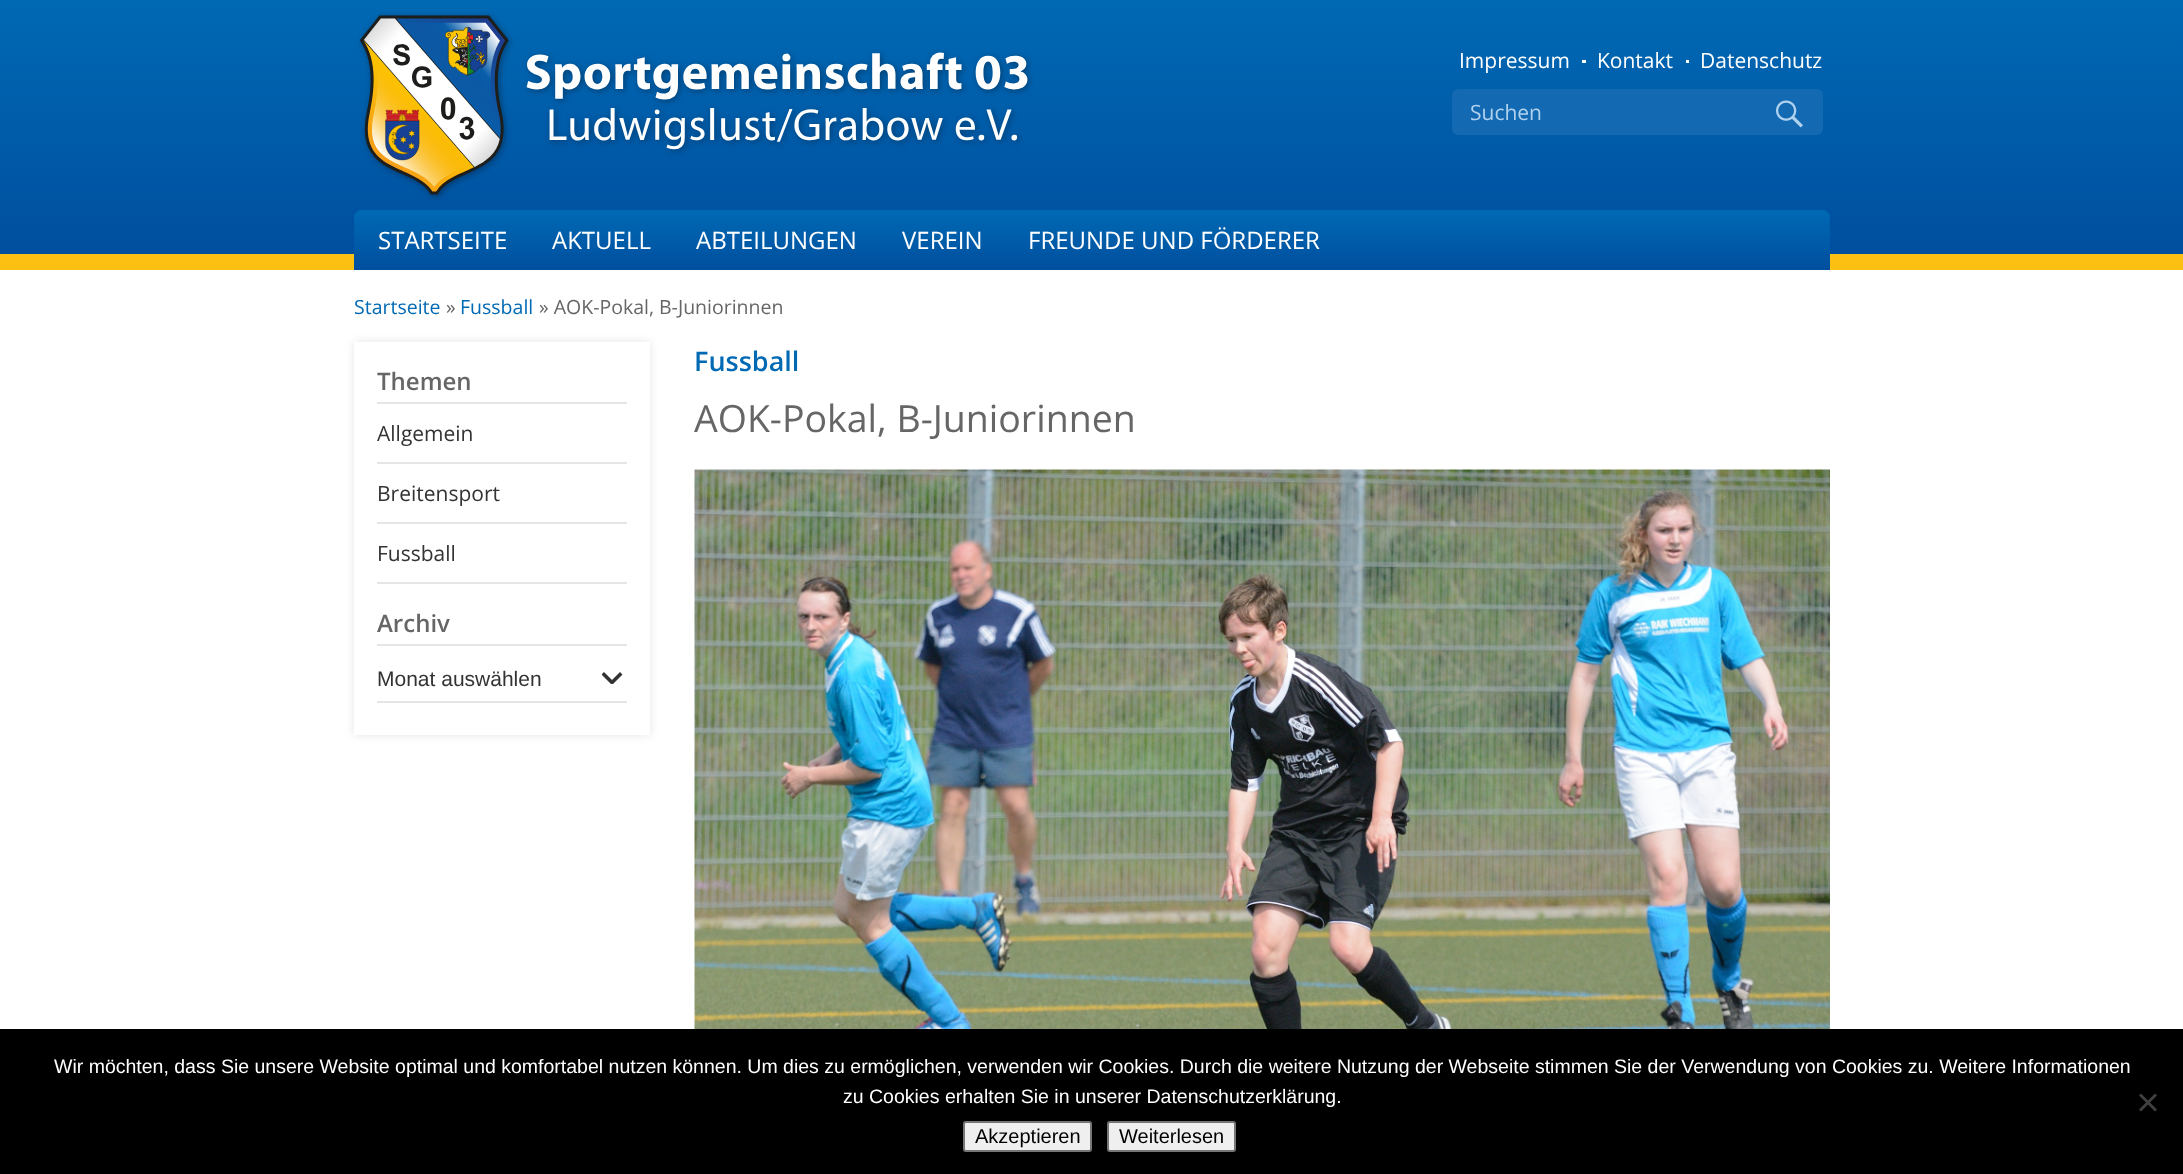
<!DOCTYPE html>
<meta charset="utf-8">
<style>body { margin: 0 } canvas { display: block }</style>
<canvas id="canvas" width="2183" height="1174"></canvas>
<img id="img1" src="img_01.png" hidden>
<img id="img2" src="img_02.png" hidden>
<img id="img3" src="img_03.png" hidden>
<script>
window.onload = function () {
	const canvas = document.getElementById("canvas");
	const ctx = canvas.getContext("2d");
	ctx.miterLimit = 4;
	ctx.fontKerning = "normal";
	function txt(s, x, y) {
		ctx.fillText(s, x, y);
	}
	function fill(x, y, w, h) {
		ctx.fillRect(x, y, w, h);
	}
	function round(x, y, w, h, r) {
		ctx.beginPath();
		ctx.roundRect(x, y, w, h, r);
		ctx.fill();
	}
	function img(id, x, y, w, h) {
		ctx.drawImage(document.getElementById(id), x, y, w, h);
	}
	let gradient;

	ctx.fillStyle = "#FFFFFF";
	fill(0, 0, 2183, 1174);
	gradient = ctx.createLinearGradient(1092, 0, 1092, 270);
	gradient.addColorStop(0, "#0069B4");
	gradient.addColorStop(0.94, "#004F9E");
	gradient.addColorStop(0.94, "#FBC011");
	gradient.addColorStop(1, "#FBC011");
	ctx.fillStyle = gradient;
	fill(0, 0, 2183, 270);
	img("img1", 358, 12, 675, 188);
	ctx.fillStyle = "#FFFFFF";
	fill(1582, 60, 4, 3);
	fill(1686, 60, 3, 3);
	ctx.fillStyle = "#136AB2";
	round(1452, 89, 371, 46, 6);
	img("img2", 1776, 100, 27, 28);
	gradient = ctx.createLinearGradient(1092, 210, 1092, 270);
	gradient.addColorStop(0, "#0069B4");
	gradient.addColorStop(1, "#004F9E");
	ctx.fillStyle = gradient;
	ctx.beginPath();
	ctx.roundRect(354, 210, 1476, 60, [8, 8, 0, 0]);
	ctx.fill();
	ctx.save();
	ctx.beginPath();
	ctx.moveTo(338, 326);
	ctx.lineTo(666, 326);
	ctx.lineTo(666, 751);
	ctx.lineTo(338, 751);
	ctx.closePath();
	ctx.moveTo(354, 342);
	ctx.lineTo(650, 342);
	ctx.lineTo(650, 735);
	ctx.lineTo(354, 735);
	ctx.closePath();
	ctx.clip("evenodd");
	ctx.fillStyle = "rgba(0, 0, 0, 0.1)";
	ctx.filter = "blur(5px)";
	ctx.beginPath();
	ctx.rect(354, 342, 296, 393);
	ctx.fill();
	ctx.filter = "none";
	ctx.restore();
	ctx.fillStyle = "#E5E5E5";
	fill(377, 402, 250, 2);
	fill(377, 462, 250, 2);
	fill(377, 522, 250, 2);
	fill(377, 582, 250, 2);
	fill(377, 644, 250, 2);
	ctx.save();
	ctx.beginPath();
	ctx.rect(602, 672, 21, 12);
	ctx.clip();
	ctx.fillStyle = "#333333";
	ctx.beginPath();
	ctx.moveTo(620, 672);
	ctx.lineTo(612, 680);
	ctx.lineTo(604, 672);
	ctx.lineTo(601.5, 674.5);
	ctx.lineTo(612, 685);
	ctx.lineTo(622.5, 674.5);
	ctx.closePath();
	ctx.fill();
	ctx.restore();
	fill(377, 701, 250, 2);
	img("img3", 694, 469, 1136, 560);
	ctx.fillStyle = "#000000";
	fill(0, 1029, 2183, 145);
	ctx.fillStyle = "#404040";
	ctx.beginPath();
	ctx.moveTo(2155, 1093.5);
	ctx.lineTo(2157, 1095.5);
	ctx.lineTo(2141, 1111.5);
	ctx.lineTo(2139, 1109.5);
	ctx.closePath();
	ctx.fill();
	ctx.beginPath();
	ctx.moveTo(2139, 1095.5);
	ctx.lineTo(2141, 1093.5);
	ctx.lineTo(2157, 1109.5);
	ctx.lineTo(2155, 1111.5);
	ctx.closePath();
	ctx.fill();
	ctx.fillStyle = "#EFEFEF";
	ctx.beginPath();
	ctx.roundRect(964, 1122, 127, 29, 2);
	ctx.fill();
	ctx.strokeStyle = "#767676";
	ctx.lineWidth = 2;
	ctx.stroke();
	ctx.beginPath();
	ctx.roundRect(1108, 1122, 127, 29, 2);
	ctx.fill();
	ctx.stroke();
	ctx.font = "21px Open Sans";
	ctx.fillStyle = "#FFFFFF";
	txt("Impressum", 1459, 68);
	txt("Kontakt", 1597, 68);
	txt("Datenschutz", 1700, 68);
	ctx.fillStyle = "#B0D2EF";
	txt("Suchen", 1470, 120);
	ctx.font = "24px Open Sans";
	ctx.fillStyle = "#FFFFFF";
	txt("STARTSEITE", 378, 249);
	txt("AKTUELL", 552, 249);
	txt("ABTEILUNGEN", 696, 249);
	txt("VEREIN", 902, 249);
	txt("FREUNDE UND FÖRDERER", 1028, 249);
	ctx.font = "19.5px Open Sans";
	ctx.fillStyle = "#0069B4";
	txt("Startseite", 354, 314);
	ctx.fillStyle = "#666666";
	txt("»", 446, 314);
	ctx.fillStyle = "#0069B4";
	txt("Fussball", 460, 314);
	ctx.fillStyle = "#666666";
	txt("» AOK-Pokal, B-Juniorinnen", 539, 314);
	ctx.font = "600 24px Open Sans";
	txt("Themen", 377, 390);
	ctx.font = "21px Open Sans";
	ctx.fillStyle = "#333333";
	txt("Allgemein", 377, 441);
	txt("Breitensport", 377, 501);
	txt("Fussball", 377, 561);
	ctx.font = "600 24px Open Sans";
	ctx.fillStyle = "#666666";
	txt("Archiv", 377, 632);
	ctx.font = "21px Liberation Sans";
	ctx.fillStyle = "#333333";
	txt("Monat auswählen", 377, 686);
	ctx.font = "600 27px Open Sans";
	ctx.fillStyle = "#0069B4";
	txt("Fussball", 694, 371);
	ctx.font = "37.5px Open Sans";
	ctx.fillStyle = "#666666";
	txt("AOK-Pokal, B-Juniorinnen", 694, 432);
	ctx.font = "19.5px Liberation Sans";
	ctx.fillStyle = "#FFFFFF";
	txt("Wir möchten, dass Sie unsere Website optimal und komfortabel nutzen können. Um dies zu ermöglichen, verwenden wir Cookies. Durch die weitere Nutzung der Webseite stimmen Sie der Verwendung von Cookies zu. Weitere Informationen", 54, 1073);
	txt("zu Cookies erhalten Sie in unserer Datenschutzerklärung.", 843, 1103);
	ctx.font = "20px Liberation Sans";
	ctx.fillStyle = "#000000";
	txt("Akzeptieren", 975, 1143);
	txt("Weiterlesen", 1119, 1143);
};
</script>
